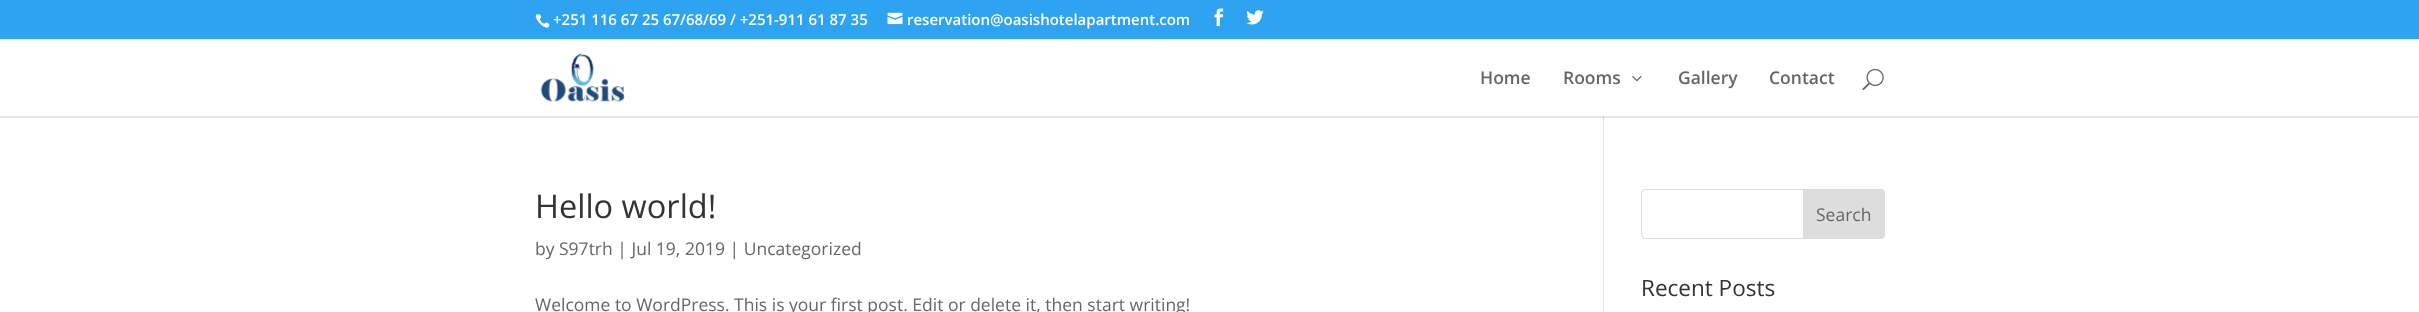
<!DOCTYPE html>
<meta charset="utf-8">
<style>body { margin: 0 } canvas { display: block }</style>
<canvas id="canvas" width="2419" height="312"></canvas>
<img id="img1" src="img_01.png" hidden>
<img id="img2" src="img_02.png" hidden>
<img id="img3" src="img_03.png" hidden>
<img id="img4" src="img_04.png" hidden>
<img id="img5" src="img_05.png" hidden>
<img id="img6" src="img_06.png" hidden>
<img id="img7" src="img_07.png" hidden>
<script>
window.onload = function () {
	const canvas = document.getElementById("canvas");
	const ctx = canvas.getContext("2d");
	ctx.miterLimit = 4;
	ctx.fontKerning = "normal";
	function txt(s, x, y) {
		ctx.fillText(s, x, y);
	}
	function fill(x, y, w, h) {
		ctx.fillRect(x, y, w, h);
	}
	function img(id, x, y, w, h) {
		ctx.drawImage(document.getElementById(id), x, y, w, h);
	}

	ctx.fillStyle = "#FFFFFF";
	fill(0, 0, 2419, 312);
	ctx.fillStyle = "#E6E6E6";
	fill(0, 116, 2419, 2);
	ctx.fillStyle = "#2EA3F2";
	fill(0, 0, 2419, 39);
	img("img1", 535, 14, 15, 14);
	img("img2", 887, 12, 16, 13);
	img("img3", 1214, 8, 10, 19);
	img("img4", 1246, 10, 18, 15);
	img("img5", 540, 53, 85, 49);
	img("img6", 1632, 76, 10, 6);
	img("img7", 1862, 68, 22, 23);
	ctx.fillStyle = "#E2E2E2";
	fill(1603, 116, 1, 196);
	ctx.fillStyle = "#CBCBCB";
	fill(1603, 116, 1, 2);
	ctx.beginPath();
	ctx.roundRect(1641.5, 189.5, 243, 49, 3.5);
	ctx.strokeStyle = "#DDDDDD";
	ctx.stroke();
	ctx.fillStyle = "#DDDDDD";
	ctx.beginPath();
	ctx.roundRect(1803.5, 189.5, 81, 49, [0, 3.5, 3.5, 0]);
	ctx.fill();
	ctx.stroke();
	ctx.font = "600 15px Open Sans";
	ctx.fillStyle = "#FFFFFF";
	txt("+251 116 67 25 67/68/69 / +251-911 61 87 35", 553, 25);
	txt("reservation@oasishotelapartment.com", 907, 25);
	ctx.font = "600 17.5px Open Sans";
	ctx.fillStyle = "#666666";
	txt("Home", 1480, 84);
	txt("Rooms", 1563, 84);
	txt("Gallery", 1678, 84);
	txt("Contact", 1769, 84);
	ctx.font = "32.5px Open Sans";
	ctx.fillStyle = "#333333";
	txt("Hello world!", 535, 218);
	ctx.font = "17.5px Open Sans";
	ctx.fillStyle = "#666666";
	txt("by S97trh | Jul 19, 2019 | Uncategorized", 535, 255);
	txt("Welcome to WordPress. This is your first post. Edit or delete it, then start writing!", 535, 311);
	txt("Search", 1816, 221);
	ctx.font = "22.5px Open Sans";
	ctx.fillStyle = "#333333";
	txt("Recent Posts", 1641, 296);
};
</script>
